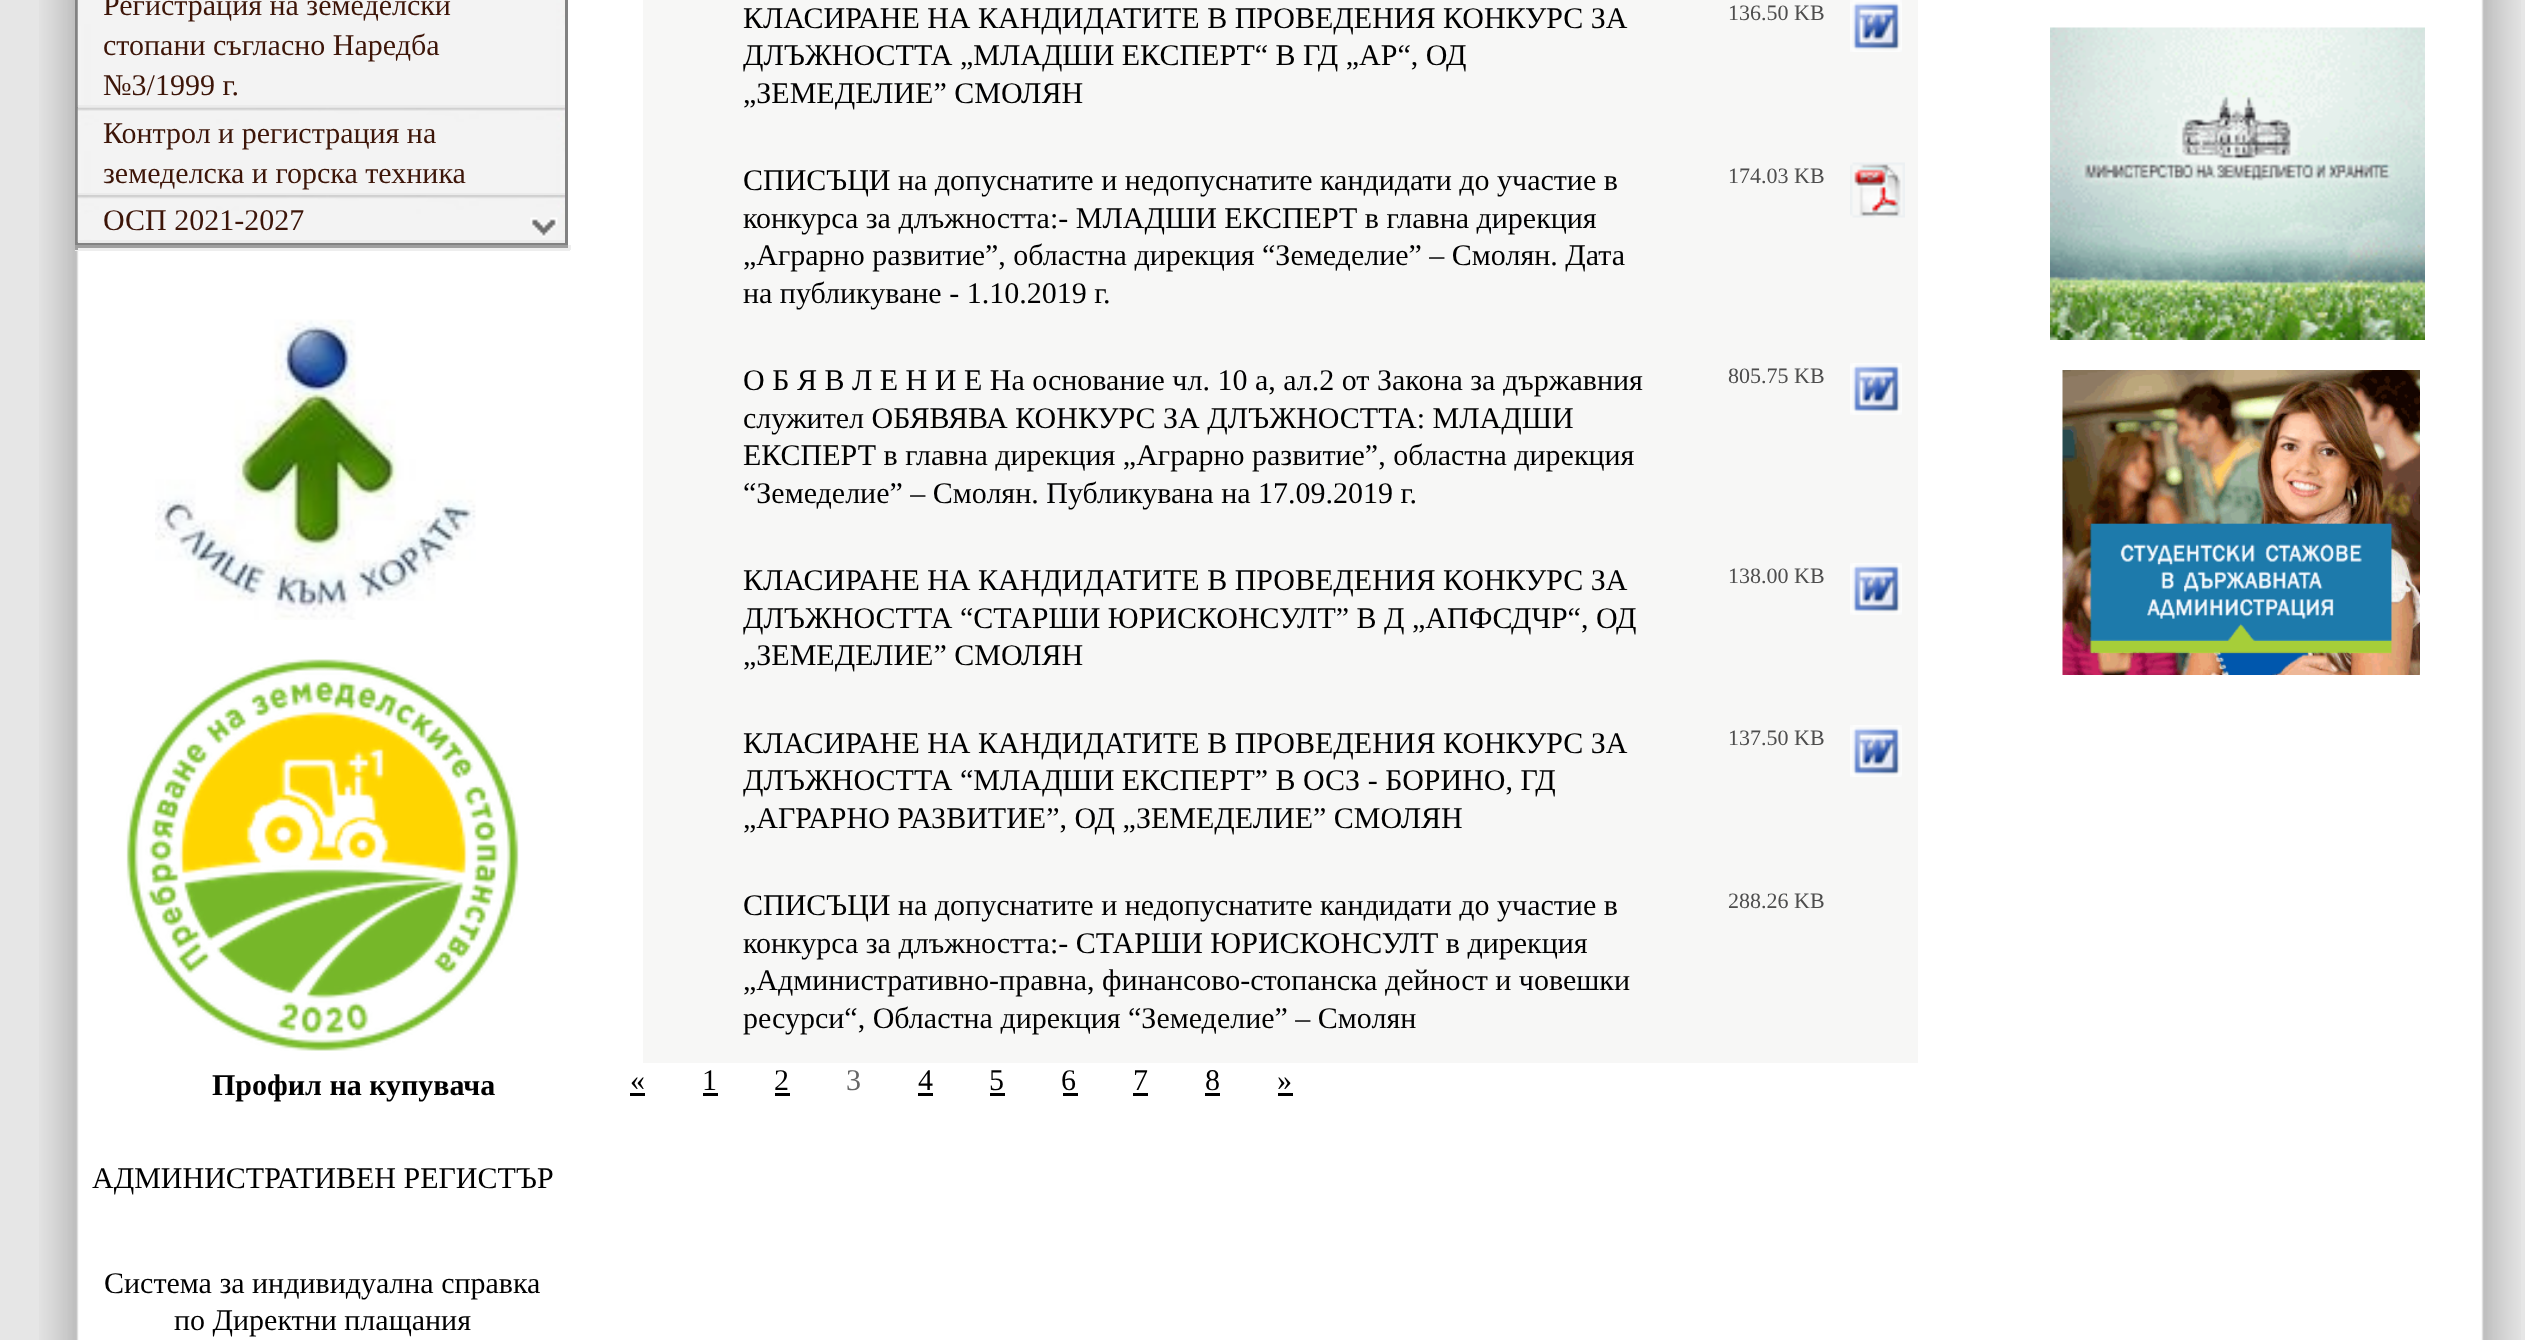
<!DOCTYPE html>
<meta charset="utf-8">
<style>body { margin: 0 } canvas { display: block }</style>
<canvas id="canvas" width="2525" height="1340"></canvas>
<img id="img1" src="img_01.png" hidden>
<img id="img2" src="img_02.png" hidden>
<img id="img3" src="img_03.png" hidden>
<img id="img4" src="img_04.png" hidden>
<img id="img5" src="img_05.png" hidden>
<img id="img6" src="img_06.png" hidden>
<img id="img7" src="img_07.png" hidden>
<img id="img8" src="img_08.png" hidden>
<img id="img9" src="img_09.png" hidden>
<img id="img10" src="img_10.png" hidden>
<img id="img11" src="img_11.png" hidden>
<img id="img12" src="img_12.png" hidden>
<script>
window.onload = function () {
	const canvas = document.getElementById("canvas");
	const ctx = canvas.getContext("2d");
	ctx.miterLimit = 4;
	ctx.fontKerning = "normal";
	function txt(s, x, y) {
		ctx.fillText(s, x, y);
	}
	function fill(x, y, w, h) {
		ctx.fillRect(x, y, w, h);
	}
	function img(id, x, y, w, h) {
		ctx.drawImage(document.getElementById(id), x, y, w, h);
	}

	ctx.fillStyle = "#E6E6E6";
	fill(0, 0, 2525, 1340);
	img("img1", 39, 0, 2482, 1340);
	ctx.strokeStyle = "#828282";
	ctx.lineWidth = 3;
	ctx.strokeRect(76.5, -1.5, 490, 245);
	img("img2", 77, 0, 488, 108);
	ctx.fillStyle = "#EBEBEB";
	fill(78, 105, 487, 3);
	img("img3", 77, 107, 488, 88);
	fill(78, 193, 487, 2);
	img("img4", 77, 195, 488, 48);
	fill(78, 240, 487, 3);
	img("img5", 530, 217, 28, 21);
	ctx.fillStyle = "#9F9F9F";
	fill(75, 245, 495, 3);
	ctx.fillStyle = "#EEEEEE";
	fill(568, 245, 3, 5);
	fill(75, 248, 495, 3);
	ctx.fillStyle = "#9F9F9F";
	fill(75, 245, 3, 5);
	img("img6", 155, 319, 321, 301);
	img("img7", 126, 659, 393, 392);
	ctx.fillStyle = "#F7F7F6";
	fill(643, 0, 1275, 138);
	img("img8", 1850, 0, 52, 52);
	fill(643, 138, 1275, 200);
	img("img9", 1850, 162, 55, 56);
	fill(643, 338, 1275, 200);
	img("img10", 1850, 363, 52, 52);
	fill(643, 538, 1275, 162);
	img("img10", 1850, 563, 52, 52);
	fill(643, 700, 1275, 163);
	img("img8", 1850, 725, 52, 52);
	fill(643, 863, 1275, 200);
	ctx.fillStyle = "#000000";
	fill(630, 1093, 15, 3);
	fill(703, 1093, 15, 3);
	fill(775, 1093, 15, 3);
	fill(918, 1093, 15, 3);
	fill(990, 1093, 15, 3);
	fill(1063, 1093, 15, 3);
	fill(1133, 1093, 15, 3);
	fill(1205, 1093, 15, 3);
	fill(1278, 1093, 15, 3);
	img("img11", 2050, 27, 375, 313);
	img("img12", 2062, 370, 358, 305);
	ctx.font = "30px Liberation Serif";
	ctx.fillStyle = "#3D1508";
	txt("Регистрация на земеделски", 103, 15);
	txt("стопани съгласно Наредба", 103, 55);
	txt("№3/1999 г.", 103, 95);
	txt("Контрол и регистрация на", 103, 143);
	txt("земеделска и горска техника", 103, 183);
	txt("ОСП 2021-2027", 103, 230);
	ctx.font = "bold 30px Liberation Serif";
	ctx.fillStyle = "#000000";
	txt("Профил на купувача", 212, 1095);
	ctx.font = "30px Liberation Serif";
	txt("АДМИНИСТРАТИВЕН РЕГИСТЪР", 92, 1188);
	txt("Система за индивидуaлна справка", 104, 1293);
	txt("по Директни плащания", 174, 1330);
	txt("КЛАСИРАНЕ НА КАНДИДАТИТЕ В ПРОВЕДЕНИЯ КОНКУРС ЗА", 743, 28);
	txt("ДЛЪЖНОСТТА „МЛАДШИ ЕКСПЕРТ“ В ГД „АР“, ОД", 743, 65);
	txt("„ЗЕМЕДЕЛИЕ” СМОЛЯН", 743, 103);
	ctx.font = "22px Liberation Serif";
	ctx.fillStyle = "#4D4D4D";
	txt("136.50 KB", 1728, 20);
	ctx.font = "30px Liberation Serif";
	ctx.fillStyle = "#000000";
	txt("СПИСЪЦИ на допуснатите и недопуснатите кандидати до участие в", 743, 190);
	txt("конкурса за длъжността:- МЛАДШИ ЕКСПЕРТ в главна дирекция", 743, 228);
	txt("„Аграрно развитие”, областна дирекция “Земеделие” – Смолян. Дата", 743, 265);
	txt("на публикуване - 1.10.2019 г.", 743, 303);
	ctx.font = "22px Liberation Serif";
	ctx.fillStyle = "#4D4D4D";
	txt("174.03 KB", 1728, 183);
	ctx.font = "30px Liberation Serif";
	ctx.fillStyle = "#000000";
	txt("О Б Я В Л Е Н И Е На основание чл. 10 а, ал.2 от Закона за държавния", 743, 390);
	txt("служител ОБЯВЯВА КОНКУРС ЗА ДЛЪЖНОСТТА: МЛАДШИ", 743, 428);
	txt("ЕКСПЕРТ в главна дирекция „Аграрно развитие”, областна дирекция", 743, 465);
	txt("“Земеделие” – Смолян. Публикувана на 17.09.2019 г.", 743, 503);
	ctx.font = "22px Liberation Serif";
	ctx.fillStyle = "#4D4D4D";
	txt("805.75 KB", 1728, 383);
	ctx.font = "30px Liberation Serif";
	ctx.fillStyle = "#000000";
	txt("КЛАСИРАНЕ НА КАНДИДАТИТЕ В ПРОВЕДЕНИЯ КОНКУРС ЗА", 743, 590);
	txt("ДЛЪЖНОСТТА “СТАРШИ ЮРИСКОНСУЛТ” В Д „АПФСДЧР“, ОД", 743, 628);
	txt("„ЗЕМЕДЕЛИЕ” СМОЛЯН", 743, 665);
	ctx.font = "22px Liberation Serif";
	ctx.fillStyle = "#4D4D4D";
	txt("138.00 KB", 1728, 583);
	ctx.font = "30px Liberation Serif";
	ctx.fillStyle = "#000000";
	txt("КЛАСИРАНЕ НА КАНДИДАТИТЕ В ПРОВЕДЕНИЯ КОНКУРС ЗА", 743, 753);
	txt("ДЛЪЖНОСТТА “МЛАДШИ ЕКСПЕРТ” В ОСЗ - БОРИНО, ГД", 743, 790);
	txt("„АГРАРНО РАЗВИТИЕ”, ОД „ЗЕМЕДЕЛИЕ” СМОЛЯН", 743, 828);
	ctx.font = "22px Liberation Serif";
	ctx.fillStyle = "#4D4D4D";
	txt("137.50 KB", 1728, 745);
	ctx.font = "30px Liberation Serif";
	ctx.fillStyle = "#000000";
	txt("СПИСЪЦИ на допуснатите и недопуснатите кандидати до участие в", 743, 915);
	txt("конкурса за длъжността:- СТАРШИ ЮРИСКОНСУЛТ в дирекция", 743, 953);
	txt("„Административно-правна, финансово-стопанска дейност и човешки", 743, 990);
	txt("ресурси“, Областна дирекция “Земеделие” – Смолян", 743, 1028);
	ctx.font = "22px Liberation Serif";
	ctx.fillStyle = "#4D4D4D";
	txt("288.26 KB", 1728, 908);
	ctx.font = "30px Liberation Serif";
	ctx.fillStyle = "#000000";
	txt("«", 630, 1090);
	txt("1", 702, 1090);
	txt("2", 774, 1090);
	ctx.fillStyle = "#666666";
	txt("3", 846, 1090);
	ctx.fillStyle = "#000000";
	txt("4", 918, 1090);
	txt("5", 989, 1090);
	txt("6", 1061, 1090);
	txt("7", 1133, 1090);
	txt("8", 1205, 1090);
	txt("»", 1277, 1090);
};
</script>
